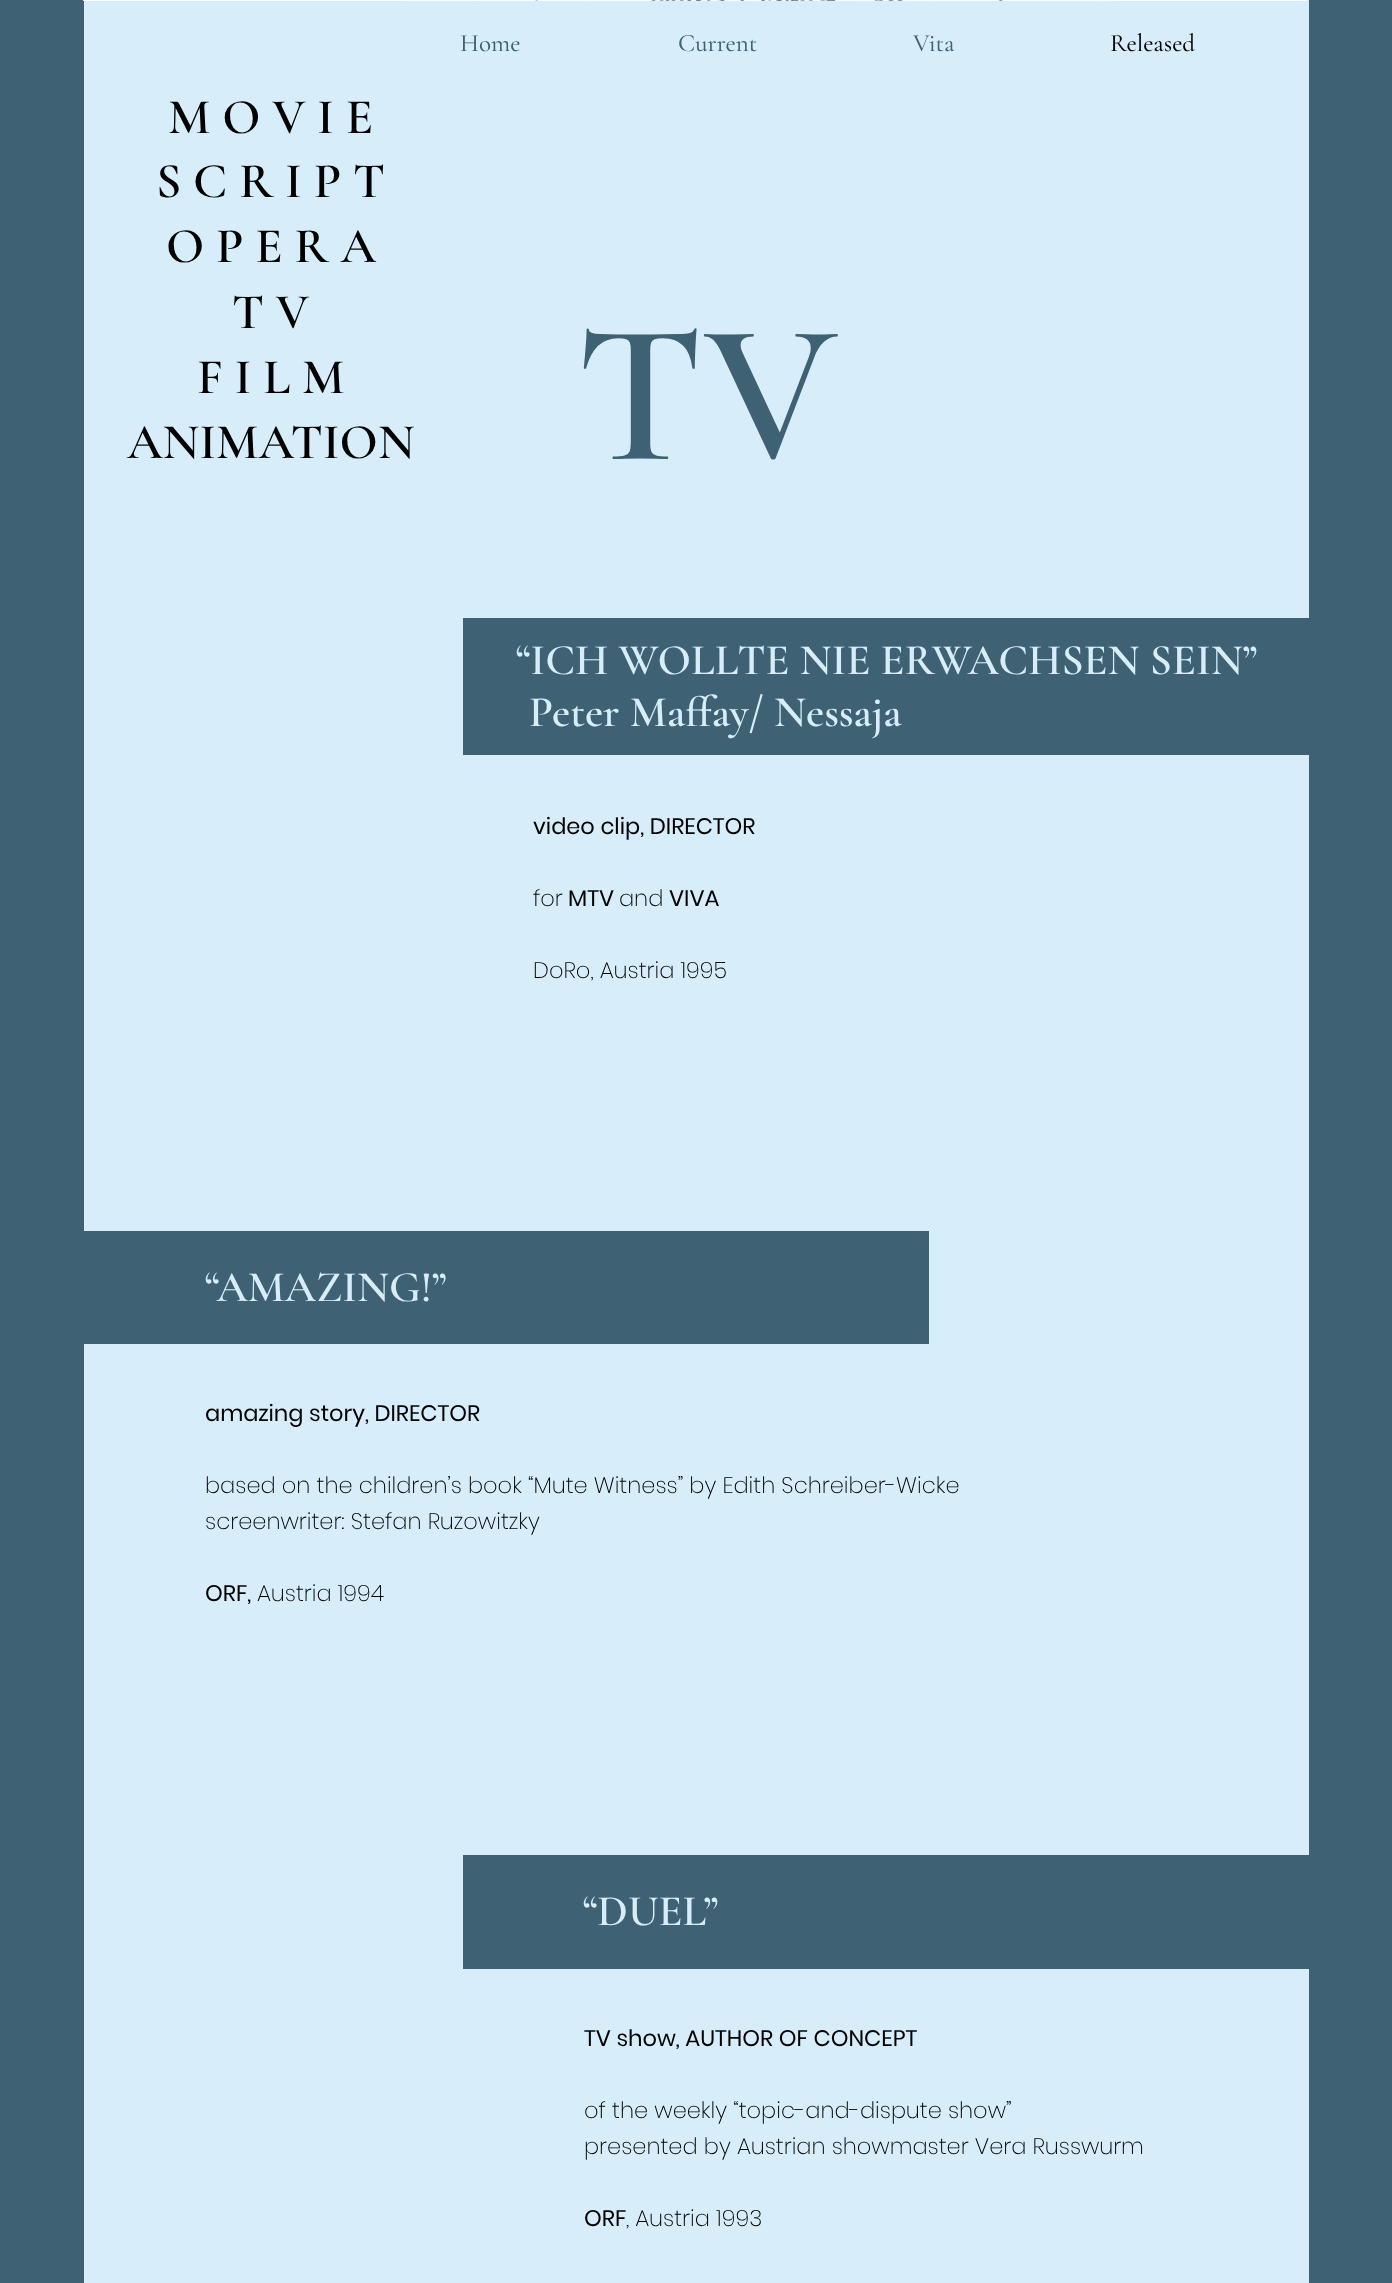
<!DOCTYPE html>
<meta charset="utf-8">
<style>body { margin: 0 } canvas { display: block }</style>
<canvas id="canvas" width="1392" height="2283"></canvas>
<img id="img1" src="img_01.png" hidden>
<script>
window.onload = function () {
	const canvas = document.getElementById("canvas");
	const ctx = canvas.getContext("2d");
	ctx.miterLimit = 4;
	ctx.fontKerning = "normal";
	function txt(s, x, y) {
		ctx.fillText(s, x, y);
	}
	function fill(x, y, w, h) {
		ctx.fillRect(x, y, w, h);
	}
	function img(id, x, y, w, h) {
		ctx.drawImage(document.getElementById(id), x, y, w, h);
	}

	ctx.fillStyle = "#3E6173";
	fill(0, 0, 1392, 2283);
	ctx.fillStyle = "#D7EEFA";
	fill(84, 0, 1225, 2283);
	img("img1", 83, 0, 1224, 1);
	ctx.fillStyle = "#3E6173";
	fill(463, 618, 846, 137);
	fill(84, 1231, 845, 113);
	fill(463, 1855, 846, 114);
	ctx.font = "500 25px Cormorant Garamond";
	txt("Home", 460, 51);
	txt("Current", 678, 51);
	txt("Vita", 913, 51);
	ctx.fillStyle = "#000000";
	txt("Released", 1110, 51);
	ctx.font = "600 50px Cormorant Garamond";
	txt("M O V I E", 168, 133);
	txt("S C R I P T", 156, 197);
	txt("O P E R A", 166, 262);
	txt("T V", 232, 328);
	txt("F I L M", 197, 393);
	txt("ANIMATION", 127, 458);
	ctx.font = "600 200px Cormorant Garamond";
	ctx.fillStyle = "#3E6173";
	txt("TV", 576, 459);
	ctx.font = "600 43.75px Cormorant Garamond";
	ctx.fillStyle = "#D7EEFA";
	txt("“ICH WOLLTE NIE ERWACHSEN SEIN”", 516, 674);
	txt("Peter Maffay/ Nessaja", 529, 726);
	ctx.font = "22.5px Poppins";
	ctx.fillStyle = "#000000";
	txt("video clip, DIRECTOR", 533, 834);
	ctx.font = "200 22.5px Poppins";
	txt("for", 533, 906);
	ctx.font = "22.5px Poppins";
	txt("MTV", 568, 906);
	ctx.font = "200 22.5px Poppins";
	txt("and", 619, 906);
	ctx.font = "22.5px Poppins";
	txt("VIVA", 669, 906);
	ctx.font = "200 22.5px Poppins";
	txt("DoRo, Austria 1995", 533, 978);
	ctx.font = "600 43.75px Cormorant Garamond";
	ctx.fillStyle = "#D7EEFA";
	txt("“AMAZING!”", 205, 1301);
	ctx.font = "22.5px Poppins";
	ctx.fillStyle = "#000000";
	txt("amazing story, DIRECTOR", 205, 1421);
	ctx.font = "200 22.5px Poppins";
	txt("based on the children’s book “Mute Witness” by Edith Schreiber-Wicke", 205, 1493);
	txt("screenwriter: Stefan Ruzowitzky", 205, 1529);
	ctx.font = "22.5px Poppins";
	txt("ORF,", 205, 1601);
	ctx.font = "200 22.5px Poppins";
	txt("Austria 1994", 257, 1601);
	ctx.font = "600 43.75px Cormorant Garamond";
	ctx.fillStyle = "#D7EEFA";
	txt("“DUEL”", 583, 1925);
	ctx.font = "22.5px Poppins";
	ctx.fillStyle = "#000000";
	txt("TV show, AUTHOR OF CONCEPT", 584, 2046);
	ctx.font = "200 22.5px Poppins";
	txt("of the weekly “topic-and-dispute show”", 584, 2118);
	txt("presented by Austrian showmaster Vera Russwurm", 584, 2154);
	ctx.font = "22.5px Poppins";
	txt("ORF", 584, 2226);
	ctx.font = "200 22.5px Poppins";
	txt(", Austria 1993", 626, 2226);
};
</script>
